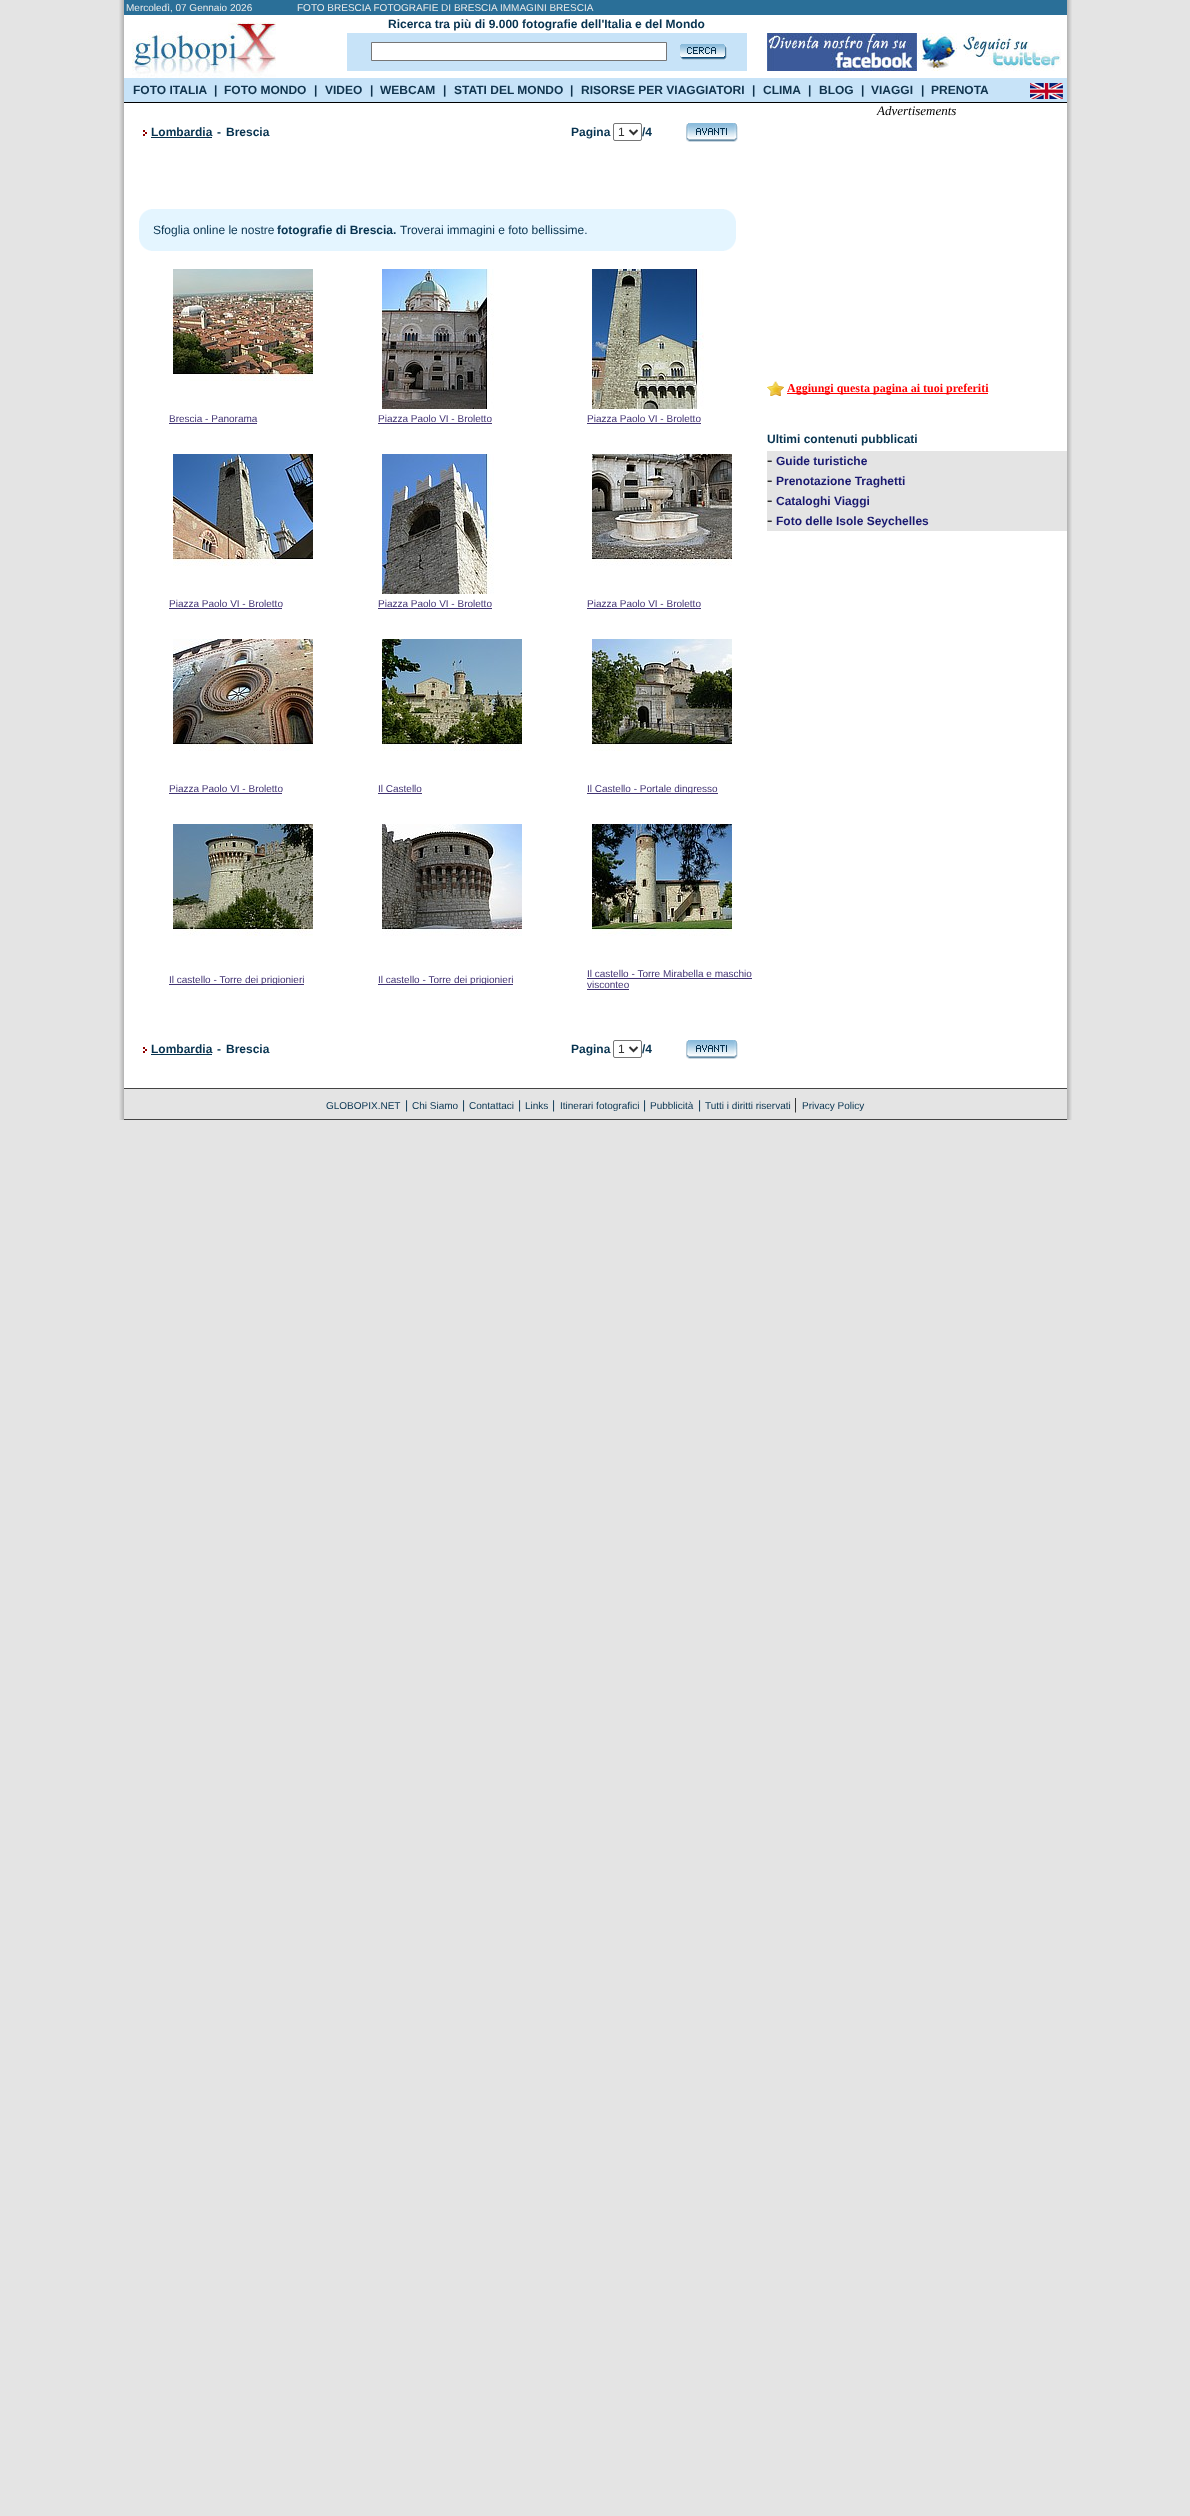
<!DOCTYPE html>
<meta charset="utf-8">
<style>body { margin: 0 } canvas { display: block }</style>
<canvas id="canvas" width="1190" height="2516"></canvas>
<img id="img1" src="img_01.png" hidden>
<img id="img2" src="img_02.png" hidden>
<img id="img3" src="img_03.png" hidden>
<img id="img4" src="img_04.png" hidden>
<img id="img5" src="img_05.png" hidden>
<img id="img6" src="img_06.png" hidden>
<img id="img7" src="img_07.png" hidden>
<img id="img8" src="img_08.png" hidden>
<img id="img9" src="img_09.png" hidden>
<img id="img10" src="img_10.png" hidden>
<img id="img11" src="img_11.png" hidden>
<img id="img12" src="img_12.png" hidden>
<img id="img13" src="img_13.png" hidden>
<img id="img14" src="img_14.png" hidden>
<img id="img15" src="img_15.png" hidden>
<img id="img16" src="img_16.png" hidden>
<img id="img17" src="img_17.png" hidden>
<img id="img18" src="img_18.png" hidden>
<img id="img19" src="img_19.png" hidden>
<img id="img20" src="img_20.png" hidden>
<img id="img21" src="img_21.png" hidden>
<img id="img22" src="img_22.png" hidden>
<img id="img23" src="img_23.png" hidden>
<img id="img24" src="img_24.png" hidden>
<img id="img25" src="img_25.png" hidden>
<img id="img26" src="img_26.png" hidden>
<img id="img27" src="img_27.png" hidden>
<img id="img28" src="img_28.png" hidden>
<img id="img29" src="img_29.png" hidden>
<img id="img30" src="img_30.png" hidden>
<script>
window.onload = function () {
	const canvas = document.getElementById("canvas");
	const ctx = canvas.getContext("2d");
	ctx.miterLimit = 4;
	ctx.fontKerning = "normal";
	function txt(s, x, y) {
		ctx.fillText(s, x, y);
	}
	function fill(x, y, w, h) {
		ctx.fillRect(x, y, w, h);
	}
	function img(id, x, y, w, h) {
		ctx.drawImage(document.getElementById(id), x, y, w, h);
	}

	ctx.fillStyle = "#E4E4E4";
	fill(0, 0, 1190, 2516);
	img("img1", 119, 0, 5, 103);
	ctx.fillStyle = "#2A6F98";
	fill(124, 0, 943, 15);
	ctx.fillStyle = "#FFFFFF";
	fill(124, 15, 943, 63);
	img("img2", 132, 22, 144, 56);
	ctx.fillStyle = "#C7E3F8";
	fill(347, 33, 400, 38);
	ctx.fillStyle = "#FFFFFF";
	ctx.beginPath();
	ctx.rect(371.5, 42.5, 295, 18);
	ctx.fill();
	ctx.strokeStyle = "#767676";
	ctx.stroke();
	img("img3", 680, 44, 47, 16);
	img("img4", 767, 33, 150, 38);
	img("img5", 917, 33, 144, 38);
	img("img6", 1067, 0, 5, 103);
	ctx.fillStyle = "#C7E3F8";
	fill(124, 78, 943, 24);
	img("img7", 1030, 83, 33, 16);
	ctx.fillStyle = "#000000";
	fill(124, 102, 943, 1);
	img("img8", 119, 103, 5, 985);
	ctx.fillStyle = "#FFFFFF";
	fill(124, 103, 943, 985);
	img("img9", 143, 130, 4, 6);
	ctx.fillStyle = "#073350";
	fill(151, 137, 61, 1);
	ctx.beginPath();
	ctx.roundRect(613.5, 123.5, 28, 17, 1.5);
	ctx.stroke();
	ctx.beginPath();
	ctx.moveTo(629.5, 130);
	ctx.lineTo(633.5, 134);
	ctx.lineTo(637.5, 130);
	ctx.strokeStyle = "#333333";
	ctx.lineWidth = 2;
	ctx.stroke();
	img("img10", 686, 123, 52, 19);
	ctx.fillStyle = "#E4F5FF";
	fill(139, 209, 597, 42);
	img("img11", 139, 209, 12, 12);
	img("img12", 724, 209, 12, 12);
	img("img13", 139, 239, 12, 12);
	img("img14", 724, 239, 12, 12);
	img("img15", 173, 269, 140, 112);
	img("img16", 382, 269, 112, 140);
	img("img17", 592, 269, 112, 140);
	ctx.fillStyle = "#413373";
	fill(169, 423, 88, 1);
	fill(378, 423, 114, 1);
	fill(587, 423, 114, 1);
	img("img18", 173, 454, 140, 112);
	img("img19", 382, 454, 112, 140);
	img("img20", 592, 454, 140, 112);
	fill(169, 608, 113, 1);
	fill(378, 608, 114, 1);
	fill(587, 608, 114, 1);
	img("img21", 173, 639, 140, 112);
	img("img22", 382, 639, 140, 112);
	img("img23", 592, 639, 140, 112);
	fill(169, 793, 113, 1);
	fill(378, 793, 44, 1);
	fill(587, 793, 131, 1);
	img("img24", 173, 824, 140, 112);
	img("img25", 382, 824, 140, 112);
	img("img26", 592, 824, 140, 112);
	fill(169, 984, 135, 1);
	fill(378, 984, 135, 1);
	fill(587, 978, 165, 1);
	fill(587, 989, 42, 1);
	img("img9", 143, 1047, 4, 6);
	ctx.fillStyle = "#073350";
	fill(151, 1054, 61, 1);
	ctx.beginPath();
	ctx.roundRect(613.5, 1040.5, 28, 17, 1.5);
	ctx.strokeStyle = "#767676";
	ctx.lineWidth = 1;
	ctx.stroke();
	ctx.beginPath();
	ctx.moveTo(629.5, 1047);
	ctx.lineTo(633.5, 1051);
	ctx.lineTo(637.5, 1047);
	ctx.strokeStyle = "#333333";
	ctx.lineWidth = 2;
	ctx.stroke();
	img("img10", 686, 1040, 52, 19);
	img("img27", 767, 381, 17, 15);
	ctx.fillStyle = "#FF0000";
	fill(787, 393, 201, 1);
	ctx.fillStyle = "#E4E4E4";
	fill(767, 451, 300, 80);
	img("img28", 1067, 103, 5, 985);
	img("img29", 119, 1088, 5, 32);
	ctx.fillStyle = "#444444";
	fill(124, 1088, 943, 1);
	img("img30", 1067, 1088, 5, 32);
	fill(124, 1119, 943, 1);
	ctx.font = "10px Liberation Sans";
	ctx.fillStyle = "#EBEBEB";
	txt("Mercoledì, 07 Gennaio 2026", 126, 11);
	txt("FOTO BRESCIA FOTOGRAFIE DI BRESCIA IMMAGINI BRESCIA", 297, 11);
	ctx.font = "bold 12px Liberation Sans";
	ctx.fillStyle = "#073350";
	txt("Ricerca tra più di 9.000 fotografie dell'Italia e del Mondo", 388, 28);
	ctx.fillStyle = "#0F334D";
	txt("FOTO ITALIA", 133, 94);
	txt("|", 214, 94);
	txt("FOTO MONDO", 224, 94);
	txt("|", 314, 94);
	txt("VIDEO", 325, 94);
	txt("|", 370, 94);
	txt("WEBCAM", 380, 94);
	txt("|", 443, 94);
	txt("STATI DEL MONDO", 454, 94);
	txt("|", 570, 94);
	txt("RISORSE PER VIAGGIATORI", 581, 94);
	txt("|", 752, 94);
	txt("CLIMA", 763, 94);
	txt("|", 808, 94);
	txt("BLOG", 819, 94);
	txt("|", 861, 94);
	txt("VIAGGI", 871, 94);
	txt("|", 921, 94);
	txt("PRENOTA", 931, 94);
	ctx.fillStyle = "#073350";
	txt("Lombardia", 151, 136);
	txt("-", 217, 136);
	txt("Brescia", 226, 136);
	txt("Pagina", 571, 136);
	ctx.font = "12px Liberation Sans";
	ctx.fillStyle = "#333333";
	txt("1", 618, 136);
	ctx.font = "bold 12px Liberation Sans";
	ctx.fillStyle = "#073350";
	txt("/4", 642, 136);
	ctx.font = "12px Liberation Sans";
	txt("Sfoglia online le nostre", 153, 234);
	ctx.font = "bold 12px Liberation Sans";
	txt("fotografie di Brescia.", 277, 234);
	ctx.font = "12px Liberation Sans";
	txt("Troverai immagini e foto bellissime.", 400, 234);
	ctx.font = "10px Liberation Sans";
	ctx.fillStyle = "#413373";
	txt("Brescia - Panorama", 169, 422);
	txt("Piazza Paolo VI - Broletto", 378, 422);
	txt("Piazza Paolo VI - Broletto", 587, 422);
	txt("Piazza Paolo VI - Broletto", 169, 607);
	txt("Piazza Paolo VI - Broletto", 378, 607);
	txt("Piazza Paolo VI - Broletto", 587, 607);
	txt("Piazza Paolo VI - Broletto", 169, 792);
	txt("Il Castello", 378, 792);
	txt("Il Castello - Portale dingresso", 587, 792);
	txt("Il castello - Torre dei prigionieri", 169, 983);
	txt("Il castello - Torre dei prigionieri", 378, 983);
	txt("Il castello - Torre Mirabella e maschio", 587, 977);
	txt("visconteo", 587, 988);
	ctx.font = "bold 12px Liberation Sans";
	ctx.fillStyle = "#073350";
	txt("Lombardia", 151, 1053);
	txt("-", 217, 1053);
	txt("Brescia", 226, 1053);
	txt("Pagina", 571, 1053);
	ctx.font = "12px Liberation Sans";
	ctx.fillStyle = "#333333";
	txt("1", 618, 1053);
	ctx.font = "bold 12px Liberation Sans";
	ctx.fillStyle = "#073350";
	txt("/4", 642, 1053);
	ctx.font = "italic 13px Liberation Serif";
	ctx.fillStyle = "#000000";
	txt("Advertisements", 877, 115);
	ctx.font = "bold 12px Liberation Serif";
	ctx.fillStyle = "#FF0000";
	txt("Aggiungi questa pagina ai tuoi preferiti", 787, 392);
	ctx.font = "bold 12px Liberation Sans";
	ctx.fillStyle = "#073350";
	txt("Ultimi contenuti pubblicati", 767, 443);
	ctx.font = "16px Liberation Serif";
	ctx.fillStyle = "#000000";
	txt("-", 767, 465);
	ctx.font = "bold 12px Liberation Sans";
	ctx.fillStyle = "#191970";
	txt("Guide turistiche", 776, 465);
	ctx.font = "16px Liberation Serif";
	ctx.fillStyle = "#000000";
	txt("-", 767, 485);
	ctx.font = "bold 12px Liberation Sans";
	ctx.fillStyle = "#191970";
	txt("Prenotazione Traghetti", 776, 485);
	ctx.font = "16px Liberation Serif";
	ctx.fillStyle = "#000000";
	txt("-", 767, 505);
	ctx.font = "bold 12px Liberation Sans";
	ctx.fillStyle = "#191970";
	txt("Cataloghi Viaggi", 776, 505);
	ctx.font = "16px Liberation Serif";
	ctx.fillStyle = "#000000";
	txt("-", 767, 525);
	ctx.font = "bold 12px Liberation Sans";
	ctx.fillStyle = "#191970";
	txt("Foto delle Isole Seychelles", 776, 525);
	ctx.font = "10px Liberation Sans";
	ctx.fillStyle = "#073350";
	txt("GLOBOPIX.NET", 326, 1109);
	ctx.font = "12px Liberation Sans";
	txt("|", 405, 1109);
	ctx.font = "10px Liberation Sans";
	txt("Chi Siamo", 412, 1109);
	ctx.font = "12px Liberation Sans";
	txt("|", 462, 1109);
	ctx.font = "10px Liberation Sans";
	txt("Contattaci", 469, 1109);
	ctx.font = "12px Liberation Sans";
	txt("|", 518, 1109);
	ctx.font = "10px Liberation Sans";
	txt("Links", 525, 1109);
	ctx.font = "12px Liberation Sans";
	txt("|", 552, 1109);
	ctx.font = "10px Liberation Sans";
	txt("Itinerari fotografici", 560, 1109);
	ctx.font = "12px Liberation Sans";
	txt("|", 643, 1109);
	ctx.font = "10px Liberation Sans";
	txt("Pubblicità", 650, 1109);
	ctx.font = "12px Liberation Sans";
	txt("|", 698, 1109);
	ctx.font = "10px Liberation Sans";
	txt("Tutti i diritti riservati", 705, 1109);
	ctx.font = "16px Liberation Serif";
	ctx.fillStyle = "#000000";
	txt("|", 794, 1109);
	ctx.font = "10px Liberation Sans";
	ctx.fillStyle = "#073350";
	txt("Privacy Policy", 802, 1109);
};
</script>
